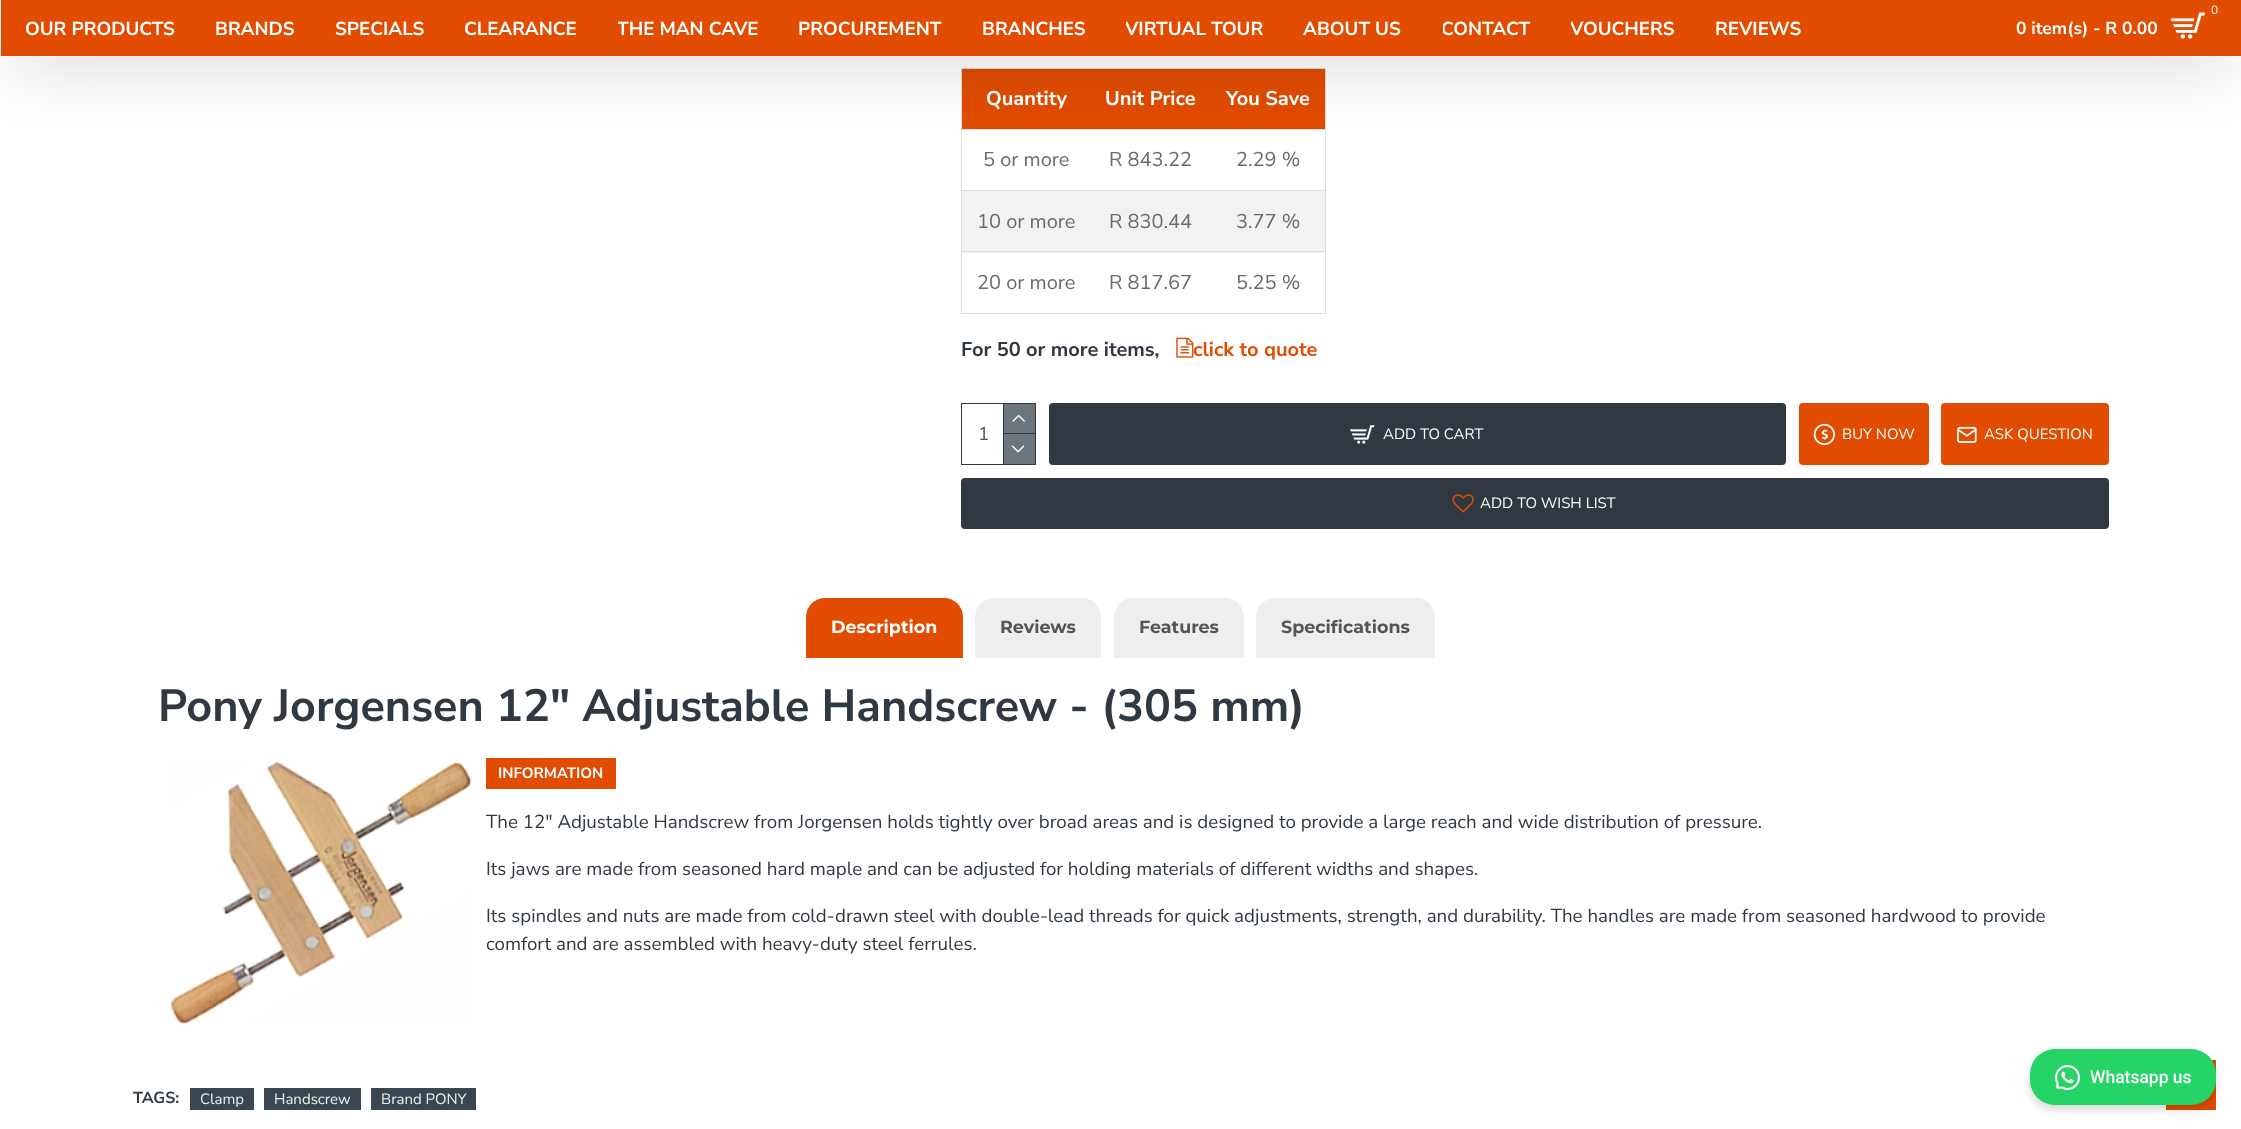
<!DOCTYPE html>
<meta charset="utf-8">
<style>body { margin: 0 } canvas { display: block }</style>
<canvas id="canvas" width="2241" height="1129"></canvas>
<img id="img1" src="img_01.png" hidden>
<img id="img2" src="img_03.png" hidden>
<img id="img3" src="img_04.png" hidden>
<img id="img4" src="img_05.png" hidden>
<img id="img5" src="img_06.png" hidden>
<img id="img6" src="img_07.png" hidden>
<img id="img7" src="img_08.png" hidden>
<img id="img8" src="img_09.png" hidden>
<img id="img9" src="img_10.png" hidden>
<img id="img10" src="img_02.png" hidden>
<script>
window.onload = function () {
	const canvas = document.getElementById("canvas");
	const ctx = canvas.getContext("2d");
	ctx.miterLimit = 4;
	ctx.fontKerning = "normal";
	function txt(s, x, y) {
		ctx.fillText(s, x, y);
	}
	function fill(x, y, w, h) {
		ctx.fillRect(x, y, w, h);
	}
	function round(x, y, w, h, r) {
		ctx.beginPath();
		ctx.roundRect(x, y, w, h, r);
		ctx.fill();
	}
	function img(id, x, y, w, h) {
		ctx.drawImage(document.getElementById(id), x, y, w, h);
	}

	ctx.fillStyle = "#FFFFFF";
	fill(0, 0, 2241, 1129);
	ctx.fillStyle = "#E14C00";
	fill(1, 0, 2240, 56);
	ctx.fillStyle = "#DDDDDD";
	fill(961, 68, 365, 1);
	fill(1325, 68, 1, 246);
	fill(961, 313, 365, 1);
	fill(961, 68, 1, 246);
	ctx.fillStyle = "#E14C00";
	fill(962, 69, 363, 60);
	ctx.fillStyle = "#DDDDDD";
	fill(961, 129, 365, 1);
	ctx.save();
	ctx.beginPath();
	ctx.moveTo(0, 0);
	ctx.lineTo(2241, 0);
	ctx.lineTo(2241, 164);
	ctx.lineTo(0, 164);
	ctx.closePath();
	ctx.moveTo(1, 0);
	ctx.lineTo(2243, 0);
	ctx.lineTo(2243, 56);
	ctx.lineTo(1, 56);
	ctx.closePath();
	ctx.clip("evenodd");
	ctx.fillStyle = "rgba(0, 0, 0, 0.3)";
	ctx.filter = "blur(37.5px)";
	ctx.beginPath();
	ctx.rect(14, 19, 2216, 31);
	ctx.fill();
	ctx.filter = "none";
	ctx.restore();
	img("img1", 2170, 12, 36, 27);
	ctx.fillStyle = "#E14C00";
	ctx.beginPath();
	ctx.arc(2215.5, 10.5, 10.5, 0, Math.PI * 2);
	ctx.fill();
	ctx.fillStyle = "#F2F2F2";
	fill(962, 191, 363, 62);
	ctx.fillStyle = "#DDDDDD";
	fill(961, 190, 365, 1);
	fill(961, 251, 365, 1);
	ctx.strokeStyle = "#303841";
	ctx.strokeRect(961.5, 403.5, 74, 61);
	ctx.fillStyle = "#303841";
	fill(1003, 404, 1, 60);
	ctx.fillStyle = "#6D767D";
	fill(1004, 404, 31, 29);
	ctx.fillStyle = "#303841";
	fill(1004, 433, 31, 1);
	img("img2", 1012, 414, 13, 8);
	ctx.fillStyle = "#6D767D";
	fill(1004, 434, 31, 30);
	img("img3", 1011, 445, 14, 8);
	ctx.fillStyle = "#303841";
	round(1049, 403, 737, 62, 4);
	img("img4", 1350, 425, 25, 19);
	ctx.fillStyle = "#E14C00";
	round(1799, 403, 130, 62, 4);
	img("img5", 1813, 423, 22, 23);
	round(1941, 403, 168, 62, 4);
	img("img6", 1957, 426, 20, 17);
	ctx.fillStyle = "#303841";
	round(961, 478, 1148, 51, 4);
	img("img7", 1452, 494, 22, 19);
	ctx.fillStyle = "#E14C00";
	ctx.beginPath();
	ctx.roundRect(806, 598, 157, 60, [19, 19, 0, 0]);
	ctx.fill();
	ctx.fillStyle = "#EEEEEE";
	ctx.beginPath();
	ctx.roundRect(975, 598, 126, 60, [19, 19, 0, 0]);
	ctx.fill();
	ctx.beginPath();
	ctx.roundRect(1114, 598, 130, 60, [19, 19, 0, 0]);
	ctx.fill();
	ctx.beginPath();
	ctx.roundRect(1256, 598, 179, 60, [19, 19, 0, 0]);
	ctx.fill();
	img("img8", 170, 761, 302, 263);
	ctx.fillStyle = "#E14C00";
	fill(486, 758, 130, 31);
	ctx.fillStyle = "#3A4750";
	fill(190, 1088, 64, 22);
	fill(264, 1088, 97, 22);
	fill(371, 1088, 105, 22);
	ctx.fillStyle = "#E14C00";
	fill(2166, 1060, 50, 50);
	ctx.fillStyle = "rgba(0, 0, 0, 0.15)";
	ctx.filter = "blur(4px)";
	ctx.beginPath();
	ctx.roundRect(2030, 1054, 186, 56, 25);
	ctx.fill();
	ctx.filter = "none";
	ctx.fillStyle = "#25D366";
	round(2030, 1049, 186, 56, 25);
	img("img9", 2055, 1065, 25, 25);
	ctx.font = "bold 18.75px Nunito Sans";
	ctx.fillStyle = "#FFFFFF";
	txt("OUR PRODUCTS", 25, 35);
	txt("BRANDS", 215, 35);
	txt("SPECIALS", 335, 35);
	txt("CLEARANCE", 464, 35);
	ctx.save();
	ctx.beginPath();
	ctx.rect(618, 15, 141, 29);
	ctx.clip();
	txt("THE MAN CAVE", 617, 35);
	ctx.restore();
	txt("PROCUREMENT", 798, 35);
	txt("BRANCHES", 982, 35);
	ctx.save();
	ctx.beginPath();
	ctx.rect(1126, 15, 138, 29);
	ctx.clip();
	txt("VIRTUAL TOUR", 1125, 35);
	ctx.restore();
	txt("ABOUT US", 1303, 35);
	ctx.save();
	ctx.beginPath();
	ctx.rect(1443, 15, 88, 29);
	ctx.clip();
	txt("CONTACT", 1441, 35);
	ctx.restore();
	ctx.save();
	ctx.beginPath();
	ctx.rect(1571, 15, 105, 29);
	ctx.clip();
	txt("VOUCHERS", 1570, 35);
	ctx.restore();
	txt("REVIEWS", 1715, 35);
	ctx.font = "12px Nunito Sans";
	txt("0", 2211, 14);
	ctx.font = "bold 17.5px Nunito Sans";
	txt("0 item(s) - R 0.00", 2016, 34);
	ctx.font = "bold 20px Nunito Sans";
	txt("Quantity", 986, 105);
	txt("Unit Price", 1105, 105);
	txt("You Save", 1226, 105);
	ctx.font = "20px Nunito Sans";
	ctx.fillStyle = "#696973";
	txt("5 or more", 983, 166);
	txt("R 843.22", 1109, 166);
	txt("2.29 %", 1236, 166);
	txt("10 or more", 977, 228);
	txt("R 830.44", 1109, 228);
	txt("3.77 %", 1236, 228);
	txt("20 or more", 977, 289);
	txt("R 817.67", 1109, 289);
	txt("5.25 %", 1236, 289);
	ctx.font = "bold 20px Nunito Sans";
	ctx.fillStyle = "#303841";
	txt("For 50 or more items,", 961, 356);
	ctx.fillStyle = "#E14C00";
	txt("click to quote", 1193, 356);
	img("img10", 1176, 337, 18, 21);
	ctx.font = "18.75px Nunito Sans";
	ctx.fillStyle = "#555555";
	txt("1", 978, 440);
	ctx.font = "15px Nunito Sans";
	ctx.fillStyle = "#FFFFFF";
	txt("ADD TO CART", 1383, 439);
	txt("BUY NOW", 1842, 439);
	txt("ASK QUESTION", 1984, 439);
	txt("ADD TO WISH LIST", 1480, 508);
	ctx.font = "bold 17.5px Montserrat";
	txt("Description", 831, 633);
	ctx.fillStyle = "#555555";
	txt("Reviews", 1000, 633);
	txt("Features", 1139, 633);
	txt("Specifications", 1281, 633);
	ctx.font = "bold 45px Nunito Sans";
	ctx.fillStyle = "#303841";
	txt("Pony Jorgensen 12″ Adjustable Handscrew - (305 mm)", 158, 721);
	ctx.font = "bold 15px Nunito Sans";
	ctx.fillStyle = "#FFFFFF";
	txt("INFORMATION", 498, 778);
	ctx.font = "18.75px Nunito Sans";
	ctx.fillStyle = "#303841";
	txt("The 12″ Adjustable Handscrew from Jorgensen holds tightly over broad areas and is designed to provide a large reach and wide distribution of pressure.", 486, 828);
	txt("Its jaws are made from seasoned hard maple and can be adjusted for holding materials of different widths and shapes.", 486, 875);
	txt("Its spindles and nuts are made from cold-drawn steel with double-lead threads for quick adjustments, strength, and durability. The handles are made from seasoned hardwood to provide", 486, 922);
	txt("comfort and are assembled with heavy-duty steel ferrules.", 486, 950);
	ctx.font = "bold 16px Nunito Sans";
	txt("TAGS:", 133, 1103);
	ctx.font = "15px Nunito Sans";
	ctx.fillStyle = "#EEEEEE";
	txt("Clamp", 200, 1104);
	txt("Handscrew", 274, 1104);
	txt("Brand PONY", 381, 1104);
	ctx.font = "500 17.5px Roboto";
	ctx.fillStyle = "#FFFFFF";
	txt("Whatsapp us", 2090, 1083);
};
</script>
